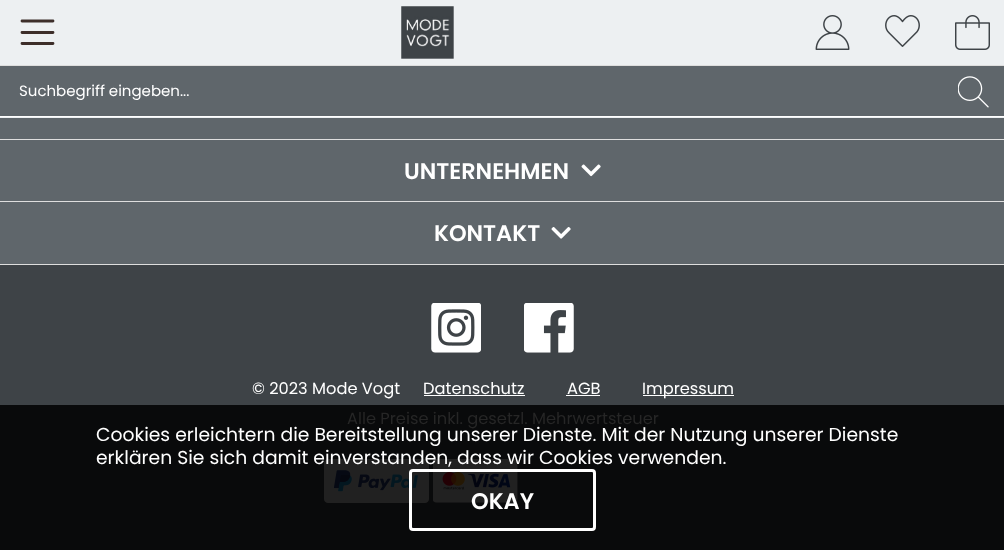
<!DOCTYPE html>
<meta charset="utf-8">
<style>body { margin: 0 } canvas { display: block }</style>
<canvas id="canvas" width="1004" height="550"></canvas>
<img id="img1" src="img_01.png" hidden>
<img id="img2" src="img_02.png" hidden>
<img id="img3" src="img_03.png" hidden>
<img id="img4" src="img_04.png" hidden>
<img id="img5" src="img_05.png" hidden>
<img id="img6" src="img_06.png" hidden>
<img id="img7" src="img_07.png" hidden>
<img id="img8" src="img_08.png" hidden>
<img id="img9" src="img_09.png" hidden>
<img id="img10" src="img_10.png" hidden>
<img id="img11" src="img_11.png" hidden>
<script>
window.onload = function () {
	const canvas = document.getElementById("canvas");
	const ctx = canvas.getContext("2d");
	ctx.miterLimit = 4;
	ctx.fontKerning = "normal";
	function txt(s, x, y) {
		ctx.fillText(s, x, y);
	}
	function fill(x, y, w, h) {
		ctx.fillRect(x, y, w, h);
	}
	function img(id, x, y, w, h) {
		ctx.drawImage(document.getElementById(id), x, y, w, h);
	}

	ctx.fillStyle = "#5F666B";
	fill(0, 0, 1004, 550);
	ctx.fillStyle = "#EDF0F2";
	fill(0, 0, 1004, 118);
	ctx.fillStyle = "#FFFFFF";
	fill(0, 116, 1004, 1);
	ctx.beginPath();
	ctx.moveTo(22, 21);
	ctx.lineTo(53, 21);
	ctx.moveTo(22, 32.5);
	ctx.lineTo(53, 32.5);
	ctx.moveTo(22, 43.5);
	ctx.lineTo(53, 43.5);
	ctx.strokeStyle = "#3D2E2A";
	ctx.lineWidth = 2.8;
	ctx.lineCap = "round";
	ctx.stroke();
	img("img1", 401, 6, 53, 53);
	img("img2", 815, 15, 35, 35);
	img("img3", 885, 15, 35, 32);
	img("img4", 955, 15, 35, 35);
	ctx.fillStyle = "#DEDEDE";
	fill(0, 65, 1004, 1);
	ctx.fillStyle = "#5F666B";
	fill(0, 66, 1004, 50);
	img("img5", 958, 76, 31, 32);
	ctx.fillStyle = "#DEDEDE";
	fill(0, 139, 1004, 1);
	fill(0, 201, 1004, 1);
	img("img6", 581, 164, 20, 13);
	fill(0, 264, 1004, 1);
	img("img7", 551, 227, 20, 12);
	ctx.fillStyle = "#3E4347";
	fill(0, 265, 1004, 140);
	ctx.fillStyle = "#090A0B";
	fill(0, 405, 1004, 145);
	img("img8", 431, 303, 50, 50);
	img("img9", 524, 303, 50, 50);
	ctx.fillStyle = "#FFFFFF";
	fill(424, 395, 101, 1);
	fill(566, 395, 34, 1);
	fill(643, 395, 91, 1);
	img("img10", 324, 459, 105, 44);
	img("img11", 433, 459, 85, 44);
	ctx.beginPath();
	ctx.roundRect(410.5, 470.5, 184, 59, 2.5);
	ctx.strokeStyle = "#FFFFFF";
	ctx.lineWidth = 3;
	ctx.stroke();
	ctx.font = "15px Poppins";
	txt("Suchbegriff eingeben...", 19, 96);
	ctx.font = "600 22.5px Poppins";
	txt("UNTERNEHMEN", 404, 179);
	txt("KONTAKT", 434, 241);
	ctx.font = "16.25px Poppins";
	txt("© 2023 Mode Vogt", 252, 394);
	txt("Datenschutz", 423, 394);
	txt("AGB", 567, 394);
	txt("Impressum", 642, 394);
	ctx.fillStyle = "#262626";
	txt("Alle Preise inkl. gesetzl. Mehrwertsteuer", 347, 424);
	ctx.font = "18.75px Poppins";
	ctx.fillStyle = "#FFFFFF";
	txt("Cookies erleichtern die Bereitstellung unserer Dienste. Mit der Nutzung unserer Dienste", 96, 441);
	txt("erklären Sie sich damit einverstanden, dass wir Cookies verwenden.", 96, 464);
	ctx.font = "600 22.5px Poppins";
	txt("OKAY", 471, 509);
};
</script>
